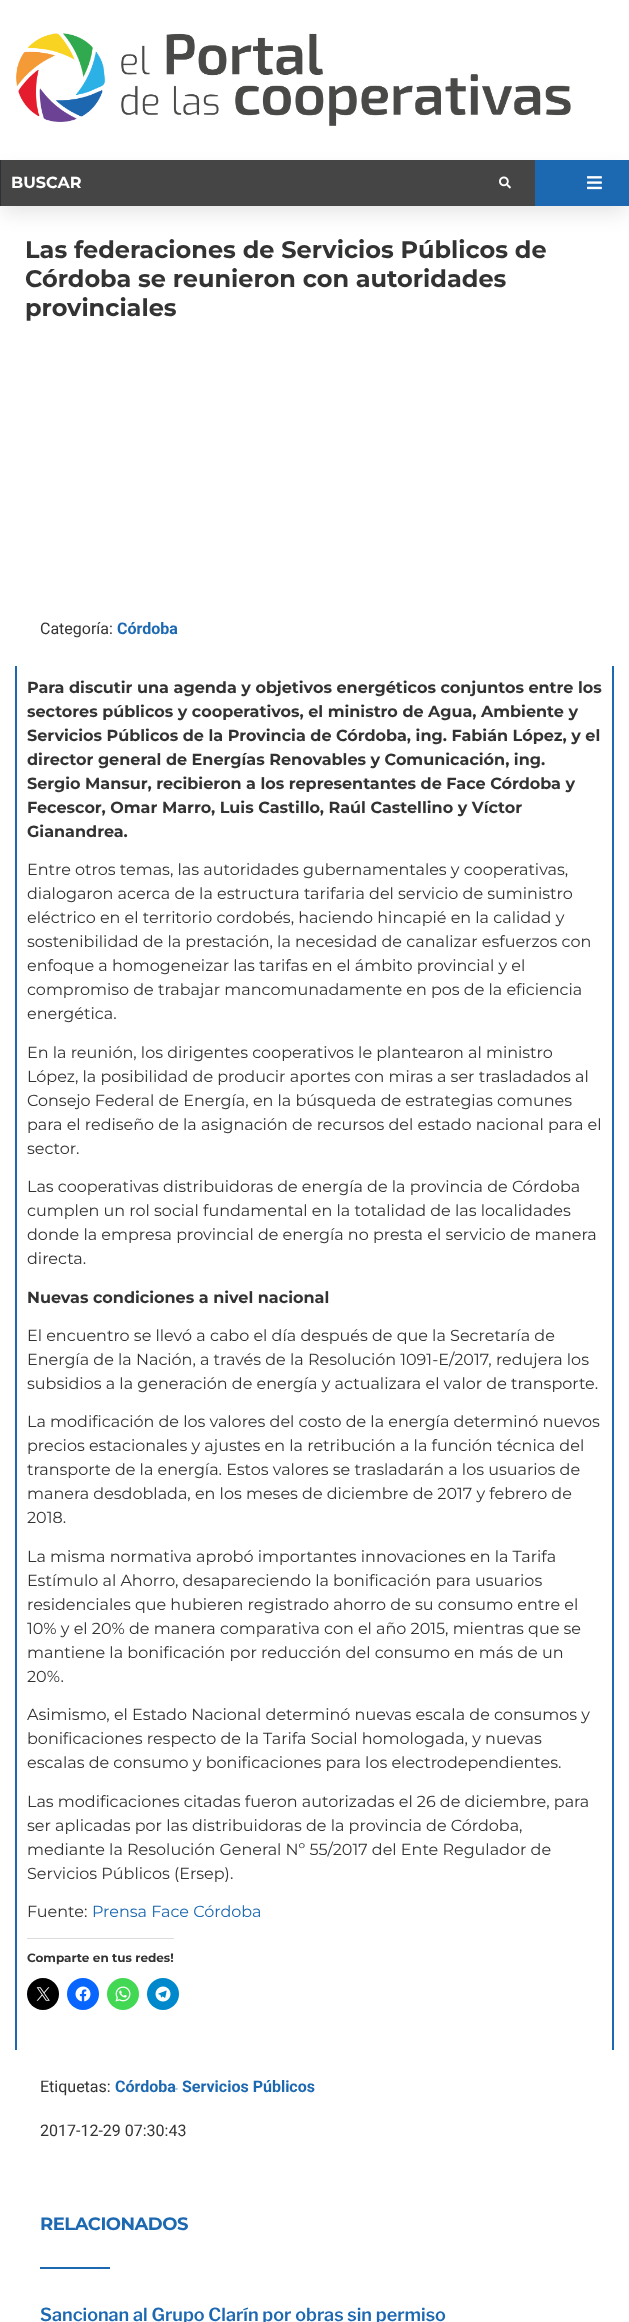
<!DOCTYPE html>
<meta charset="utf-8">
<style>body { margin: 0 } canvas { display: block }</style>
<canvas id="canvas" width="629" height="2322"></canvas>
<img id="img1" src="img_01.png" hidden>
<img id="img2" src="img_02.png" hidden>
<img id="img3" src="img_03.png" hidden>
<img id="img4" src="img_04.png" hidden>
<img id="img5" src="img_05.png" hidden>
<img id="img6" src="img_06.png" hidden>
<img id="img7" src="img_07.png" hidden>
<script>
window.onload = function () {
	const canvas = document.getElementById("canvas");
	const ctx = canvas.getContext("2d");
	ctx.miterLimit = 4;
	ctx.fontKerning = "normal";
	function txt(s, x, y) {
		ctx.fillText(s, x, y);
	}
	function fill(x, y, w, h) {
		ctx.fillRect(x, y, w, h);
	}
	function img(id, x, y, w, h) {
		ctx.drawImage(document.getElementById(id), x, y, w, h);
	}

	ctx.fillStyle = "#FFFFFF";
	fill(0, 0, 629, 2322);
	img("img1", 16, 33, 555, 93);
	ctx.fillStyle = "rgba(0, 0, 0, 0.1)";
	ctx.filter = "blur(10px)";
	ctx.beginPath();
	ctx.rect(2, 171, 625, 42);
	ctx.fill();
	ctx.filter = "none";
	ctx.fillStyle = "#454545";
	fill(1, 160, 534, 46);
	ctx.fillStyle = "#2F3033";
	fill(0, 160, 1, 46);
	img("img2", 499, 176, 12, 13);
	ctx.fillStyle = "#1C68B1";
	fill(535, 160, 94, 46);
	img("img3", 587, 176, 15, 14);
	fill(612, 666, 2, 1384);
	fill(15, 666, 2, 1384);
	ctx.fillStyle = "#DCDCDE";
	fill(27, 1938, 147, 1);
	ctx.fillStyle = "#000000";
	ctx.beginPath();
	ctx.arc(43, 1994, 16, 0, Math.PI * 2);
	ctx.fill();
	img("img4", 36, 1987, 14, 14);
	ctx.fillStyle = "#0866FF";
	ctx.beginPath();
	ctx.arc(83, 1994, 16, 0, Math.PI * 2);
	ctx.fill();
	img("img5", 75, 1986, 16, 16);
	ctx.fillStyle = "#43D854";
	ctx.beginPath();
	ctx.arc(123, 1994, 16, 0, Math.PI * 2);
	ctx.fill();
	img("img6", 115, 1986, 16, 16);
	ctx.fillStyle = "#0088CC";
	ctx.beginPath();
	ctx.arc(163, 1994, 16, 0, Math.PI * 2);
	ctx.fill();
	img("img7", 155, 1986, 16, 16);
	ctx.fillStyle = "#1C68B1";
	fill(40, 2267, 70, 2);
	ctx.font = "bold 16px Montserrat";
	ctx.fillStyle = "#FFFFFF";
	txt("BUSCAR", 11, 188);
	ctx.font = "bold 24px Montserrat";
	ctx.fillStyle = "#333333";
	txt("Las federaciones de Servicios Públicos de", 25, 258);
	txt("Córdoba se reunieron con autoridades", 25, 287);
	txt("provinciales", 25, 316);
	ctx.font = "16px Roboto";
	txt("Categoría:", 40, 634);
	ctx.font = "bold 16px Roboto";
	ctx.fillStyle = "#1C68B1";
	txt("Córdoba", 117, 634);
	ctx.font = "bold 16px Montserrat";
	ctx.fillStyle = "#333333";
	txt("Para discutir una agenda y objetivos energéticos conjuntos entre los", 27, 693);
	txt("sectores públicos y cooperativos, el ministro de Agua, Ambiente y", 27, 717);
	txt("Servicios Públicos de la Provincia de Córdoba, ing. Fabián López, y el", 27, 741);
	txt("director general de Energías Renovables y Comunicación, ing.", 27, 765);
	txt("Sergio Mansur, recibieron a los representantes de Face Córdoba y", 27, 789);
	txt("Fecescor, Omar Marro, Luis Castillo, Raúl Castellino y Víctor", 27, 813);
	txt("Gianandrea.", 27, 837);
	ctx.font = "16px Montserrat";
	txt("Entre otros temas, las autoridades gubernamentales y cooperativas,", 27, 875);
	txt("dialogaron acerca de la estructura tarifaria del servicio de suministro", 27, 899);
	txt("eléctrico en el territorio cordobés, haciendo hincapié en la calidad y", 27, 923);
	txt("sostenibilidad de la prestación, la necesidad de canalizar esfuerzos con", 27, 947);
	txt("enfoque a homogeneizar las tarifas en el ámbito provincial y el", 27, 971);
	txt("compromiso de trabajar mancomunadamente en pos de la eficiencia", 27, 995);
	txt("energética.", 27, 1019);
	txt("En la reunión, los dirigentes cooperativos le plantearon al ministro", 27, 1058);
	txt("López, la posibilidad de producir aportes con miras a ser trasladados al", 27, 1082);
	txt("Consejo Federal de Energía, en la búsqueda de estrategias comunes", 27, 1106);
	txt("para el rediseño de la asignación de recursos del estado nacional para el", 27, 1130);
	txt("sector.", 27, 1154);
	txt("Las cooperativas distribuidoras de energía de la provincia de Córdoba", 27, 1192);
	txt("cumplen un rol social fundamental en la totalidad de las localidades", 27, 1216);
	txt("donde la empresa provincial de energía no presta el servicio de manera", 27, 1240);
	txt("directa.", 27, 1264);
	ctx.font = "bold 16px Montserrat";
	txt("Nuevas condiciones a nivel nacional", 27, 1303);
	ctx.font = "16px Montserrat";
	txt("El encuentro se llevó a cabo el día después de que la Secretaría de", 27, 1341);
	txt("Energía de la Nación, a través de la Resolución 1091-E/2017, redujera los", 27, 1365);
	txt("subsidios a la generación de energía y actualizara el valor de transporte.", 27, 1389);
	txt("La modificación de los valores del costo de la energía determinó nuevos", 27, 1427);
	txt("precios estacionales y ajustes en la retribución a la función técnica del", 27, 1451);
	txt("transporte de la energía. Estos valores se trasladarán a los usuarios de", 27, 1475);
	txt("manera desdoblada, en los meses de diciembre de 2017 y febrero de", 27, 1499);
	txt("2018.", 27, 1523);
	txt("La misma normativa aprobó importantes innovaciones en la Tarifa", 27, 1562);
	txt("Estímulo al Ahorro, desapareciendo la bonificación para usuarios", 27, 1586);
	txt("residenciales que hubieren registrado ahorro de su consumo entre el", 27, 1610);
	txt("10% y el 20% de manera comparativa con el año 2015, mientras que se", 27, 1634);
	txt("mantiene la bonificación por reducción del consumo en más de un", 27, 1658);
	txt("20%.", 27, 1682);
	txt("Asimismo, el Estado Nacional determinó nuevas escala de consumos y", 27, 1720);
	txt("bonificaciones respecto de la Tarifa Social homologada, y nuevas", 27, 1744);
	txt("escalas de consumo y bonificaciones para los electrodependientes.", 27, 1768);
	txt("Las modificaciones citadas fueron autorizadas el 26 de diciembre, para", 27, 1807);
	txt("ser aplicadas por las distribuidoras de la provincia de Córdoba,", 27, 1831);
	txt("mediante la Resolución General Nº 55/2017 del Ente Regulador de", 27, 1855);
	txt("Servicios Públicos (Ersep).", 27, 1879);
	txt("Fuente:", 27, 1917);
	ctx.fillStyle = "#1C68B1";
	txt("Prensa Face Córdoba", 92, 1917);
	ctx.font = "bold 12px Montserrat";
	ctx.fillStyle = "#333333";
	txt("Comparte en tus redes!", 27, 1962);
	ctx.font = "16px Roboto";
	txt("Etiquetas:", 40, 2092);
	ctx.font = "bold 16px Roboto";
	ctx.fillStyle = "#1C68B1";
	txt("Córdoba", 115, 2092);
	ctx.font = "10px Roboto";
	txt("-", 175, 2092);
	ctx.font = "bold 16px Roboto";
	txt("Servicios Públicos", 182, 2092);
	ctx.font = "16px Roboto";
	ctx.fillStyle = "#333333";
	txt("2017-12-29 07:30:43", 40, 2136);
	ctx.letterSpacing = "-0.5px";
	ctx.font = "bold 18px Montserrat";
	ctx.fillStyle = "#1C68B1";
	txt("RELACIONADOS", 40, 2230);
	ctx.letterSpacing = "0px";
	ctx.font = "600 18px Libre Franklin";
	txt("Sancionan al Grupo Clarín por obras sin permiso", 40, 2321);
};
</script>
